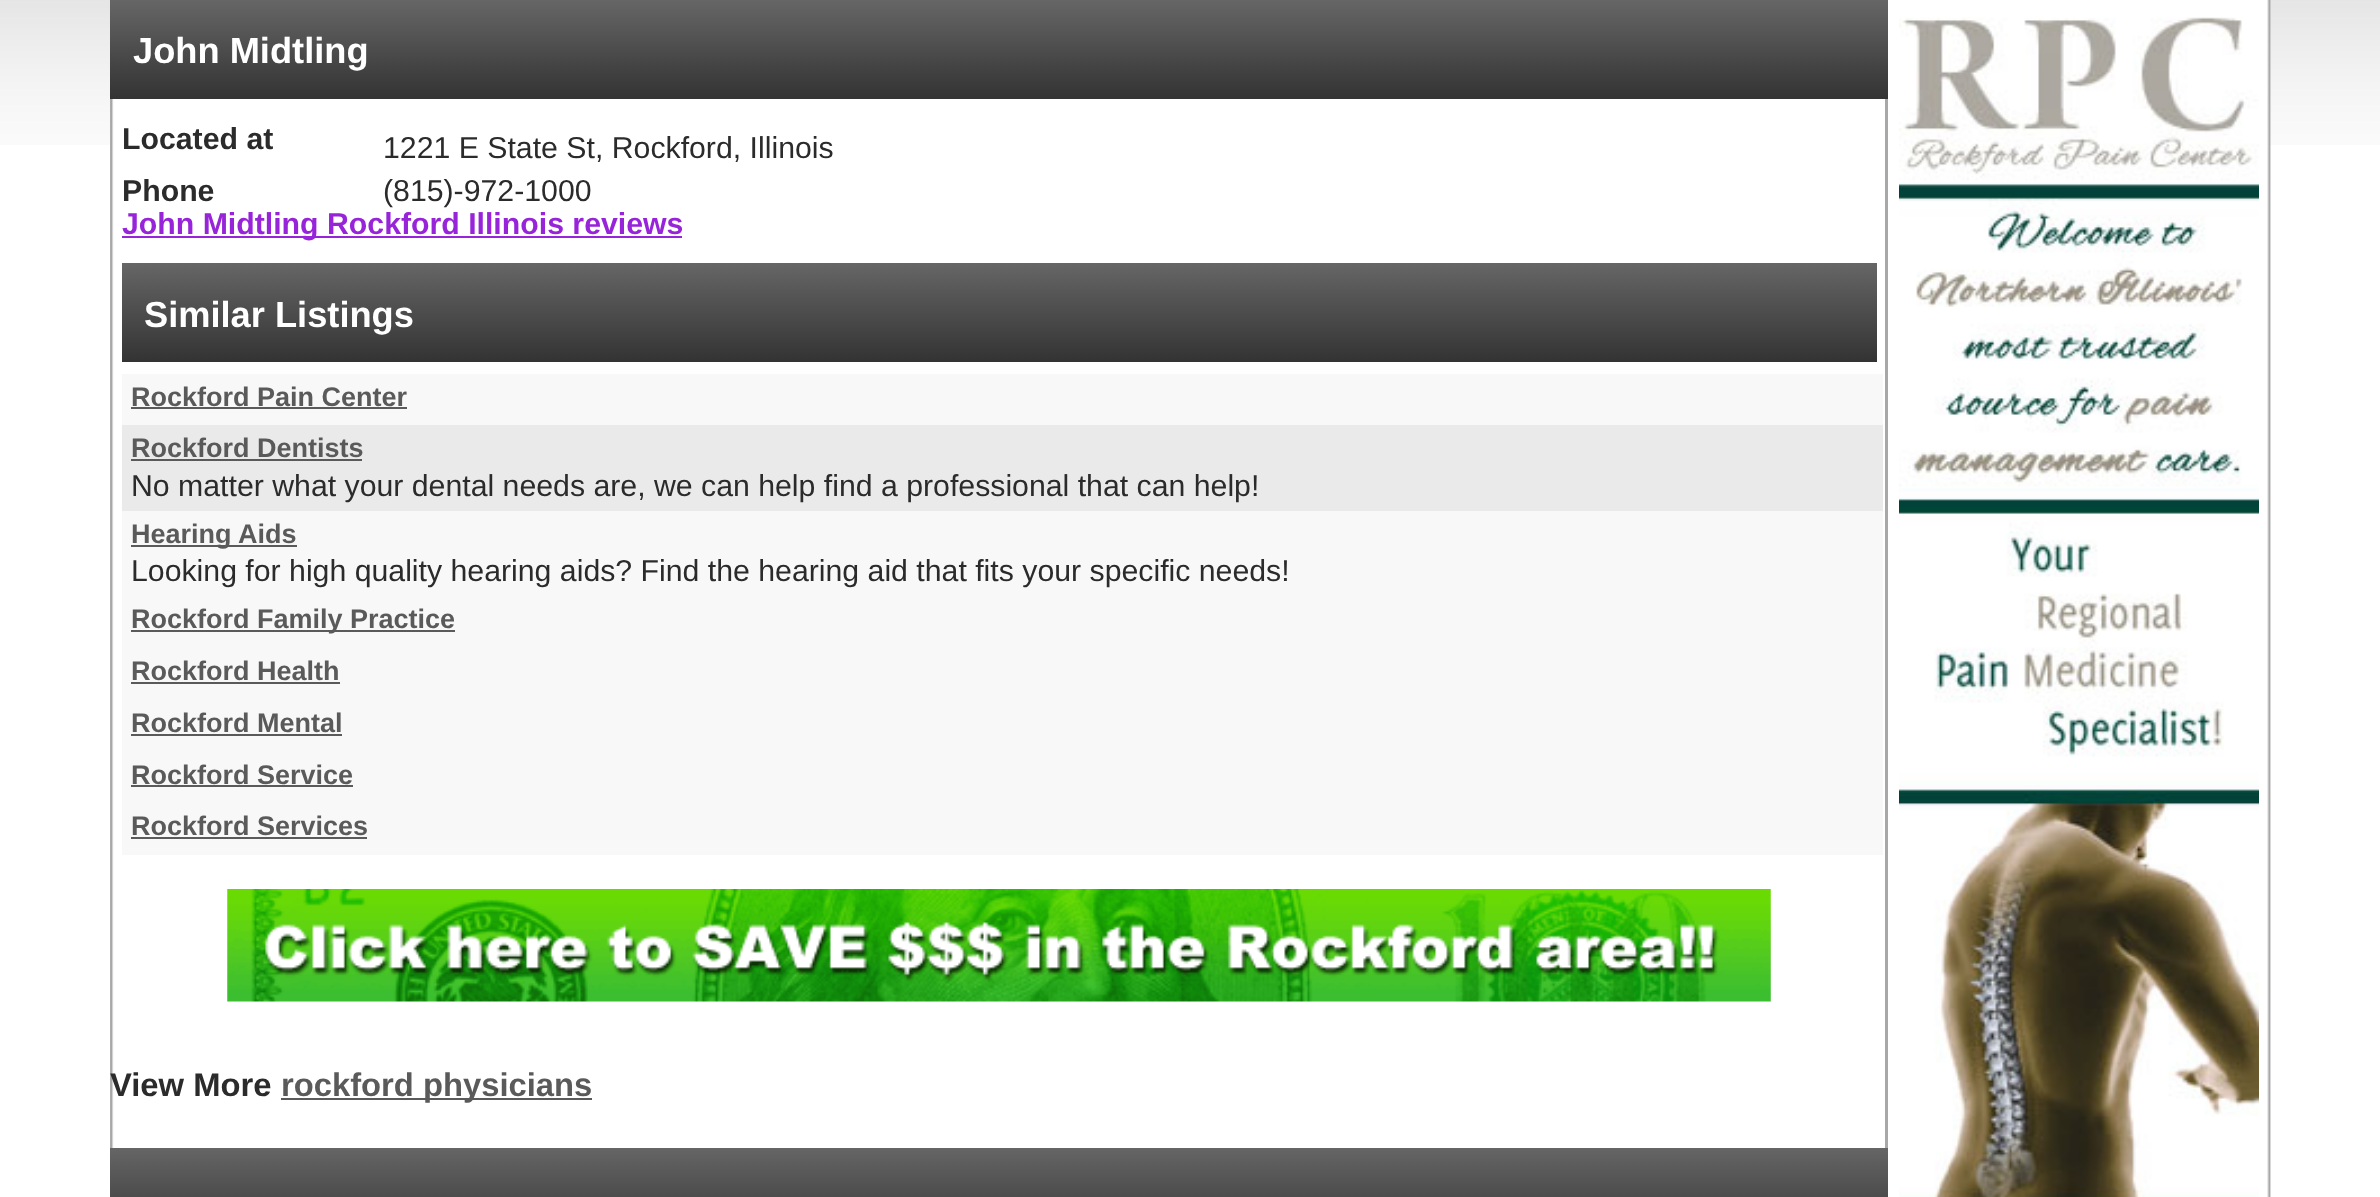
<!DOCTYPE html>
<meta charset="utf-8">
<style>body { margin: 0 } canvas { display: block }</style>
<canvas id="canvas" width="2380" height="1197"></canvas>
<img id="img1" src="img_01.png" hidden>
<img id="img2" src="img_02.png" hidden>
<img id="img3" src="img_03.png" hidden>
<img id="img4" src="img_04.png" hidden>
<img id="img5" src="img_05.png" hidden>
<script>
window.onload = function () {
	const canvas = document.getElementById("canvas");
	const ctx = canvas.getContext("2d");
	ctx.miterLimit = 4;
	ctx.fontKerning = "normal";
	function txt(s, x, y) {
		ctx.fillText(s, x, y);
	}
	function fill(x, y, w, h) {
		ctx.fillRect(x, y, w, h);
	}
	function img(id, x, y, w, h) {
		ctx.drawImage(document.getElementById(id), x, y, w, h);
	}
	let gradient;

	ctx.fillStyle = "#FFFFFF";
	fill(0, 0, 2380, 1197);
	img("img1", 0, 0, 2380, 145);
	img("img2", 110, 0, 2161, 1197);
	img("img3", 110, 0, 2161, 1197);
	ctx.fillStyle = "#A8A8A8";
	fill(1885, 99, 3, 1049);
	gradient = ctx.createLinearGradient(999, 0, 999, 99);
	gradient.addColorStop(0, "#666666");
	gradient.addColorStop(1, "#333333");
	ctx.fillStyle = gradient;
	fill(110, 0, 1778, 99);
	ctx.fillStyle = "#9824DA";
	fill(122, 236, 560, 2);
	gradient = ctx.createLinearGradient(999, 263, 999, 362);
	gradient.addColorStop(0, "#666666");
	gradient.addColorStop(1, "#333333");
	ctx.fillStyle = gradient;
	fill(122, 263, 1755, 99);
	ctx.fillStyle = "#F8F8F8";
	fill(122, 374, 1761, 51);
	ctx.fillStyle = "#5A5A5A";
	fill(131, 407, 276, 2);
	ctx.fillStyle = "#EAEAEA";
	fill(122, 425, 1761, 86);
	ctx.fillStyle = "#5A5A5A";
	fill(131, 459, 231, 2);
	ctx.fillStyle = "#F8F8F8";
	fill(122, 511, 1761, 344);
	ctx.fillStyle = "#5A5A5A";
	fill(131, 545, 166, 2);
	fill(131, 630, 324, 2);
	fill(131, 682, 209, 2);
	fill(131, 734, 211, 2);
	fill(131, 785, 222, 2);
	fill(131, 837, 236, 2);
	img("img4", 227, 889, 1544, 113);
	fill(281, 1098, 311, 2);
	gradient = ctx.createLinearGradient(999, 1147, 999, 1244);
	gradient.addColorStop(0, "#666666");
	gradient.addColorStop(1, "#333333");
	ctx.fillStyle = gradient;
	fill(110, 1148, 1778, 49);
	img("img5", 1899, 17, 360, 1180);
	ctx.font = "bold 36.25px Liberation Sans";
	ctx.fillStyle = "#FFFFFF";
	txt("John Midtling", 133, 63);
	ctx.font = "bold 30.25px Liberation Sans";
	ctx.fillStyle = "#2B2B2B";
	txt("Located at", 122, 149);
	ctx.font = "30.25px Liberation Sans";
	txt("1221 E State St, Rockford, Illinois", 383, 158);
	ctx.font = "bold 30.25px Liberation Sans";
	txt("Phone", 122, 201);
	ctx.font = "30.25px Liberation Sans";
	txt("(815)-972-1000", 383, 201);
	ctx.font = "bold 30.25px Liberation Sans";
	ctx.fillStyle = "#9824DA";
	txt("John Midtling Rockford Illinois reviews", 122, 234);
	ctx.font = "bold 36.25px Liberation Sans";
	ctx.fillStyle = "#FFFFFF";
	txt("Similar Listings", 144, 327);
	ctx.font = "bold 27px Liberation Sans";
	ctx.fillStyle = "#5A5A5A";
	txt("Rockford Pain Center", 131, 406);
	txt("Rockford Dentists", 131, 457);
	ctx.font = "30.25px Liberation Sans";
	ctx.fillStyle = "#2B2B2B";
	txt("No matter what your dental needs are, we can help find a professional that can help!", 131, 496);
	ctx.font = "bold 27px Liberation Sans";
	ctx.fillStyle = "#5A5A5A";
	txt("Hearing Aids", 131, 543);
	ctx.font = "30.25px Liberation Sans";
	ctx.fillStyle = "#2B2B2B";
	txt("Looking for high quality hearing aids? Find the hearing aid that fits your specific needs!", 131, 581);
	ctx.font = "bold 27px Liberation Sans";
	ctx.fillStyle = "#5A5A5A";
	txt("Rockford Family Practice", 131, 628);
	txt("Rockford Health", 131, 680);
	txt("Rockford Mental", 131, 732);
	txt("Rockford Service", 131, 784);
	txt("Rockford Services", 131, 835);
	ctx.font = "bold 32.75px Liberation Sans";
	ctx.fillStyle = "#2B2B2B";
	txt("View More", 110, 1096);
	ctx.fillStyle = "#5A5A5A";
	txt("rockford physicians", 281, 1096);
};
</script>
